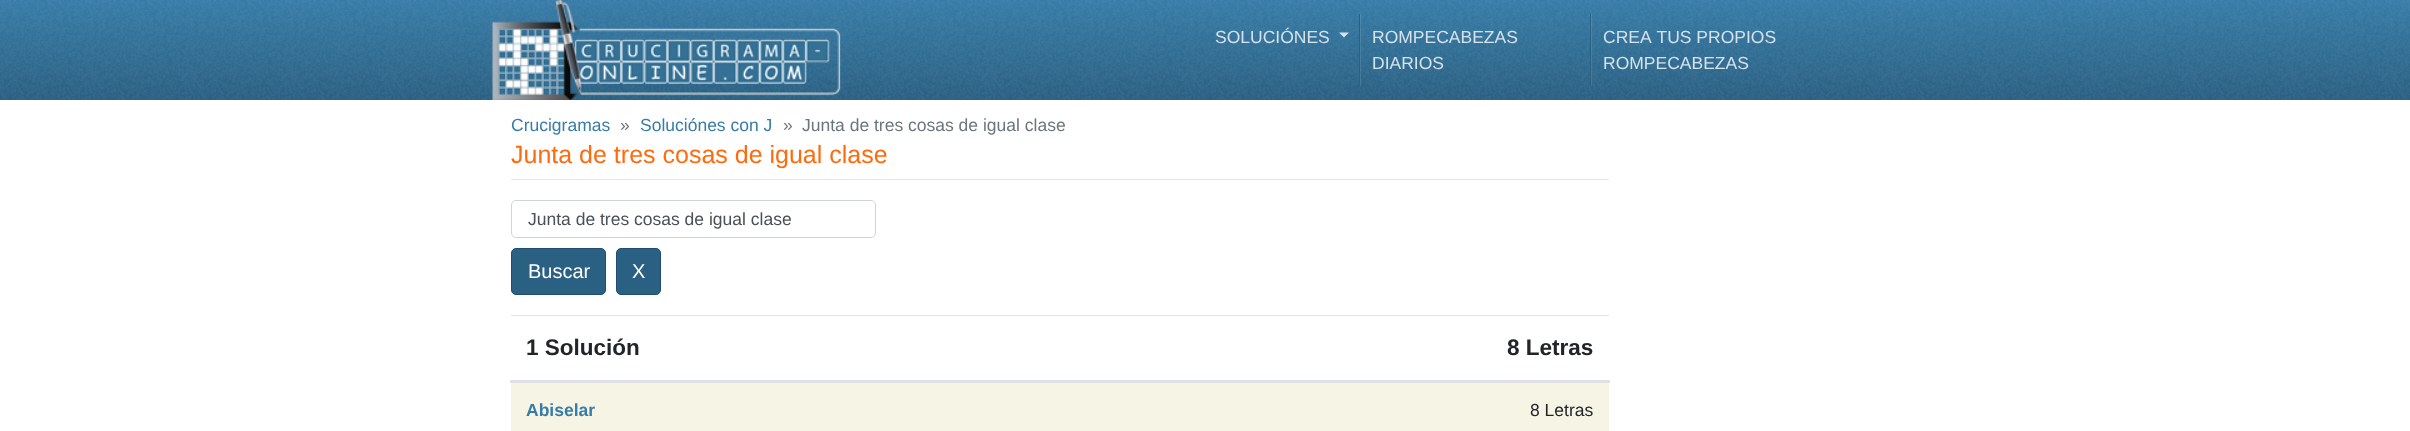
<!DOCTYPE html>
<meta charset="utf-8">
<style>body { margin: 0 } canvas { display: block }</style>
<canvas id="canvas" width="2410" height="431"></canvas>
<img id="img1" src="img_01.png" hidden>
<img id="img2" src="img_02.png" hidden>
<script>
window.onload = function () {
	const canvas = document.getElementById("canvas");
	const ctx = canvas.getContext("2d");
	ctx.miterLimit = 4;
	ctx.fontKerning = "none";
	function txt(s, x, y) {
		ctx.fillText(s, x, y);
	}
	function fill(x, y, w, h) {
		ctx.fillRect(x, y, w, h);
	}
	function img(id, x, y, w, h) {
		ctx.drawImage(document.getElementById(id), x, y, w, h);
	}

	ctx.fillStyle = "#FFFFFF";
	fill(0, 0, 2410, 431);
	img("img1", 0, 0, 2410, 100);
	img("img2", 492, 0, 349, 100);
	ctx.fillStyle = "#2A6082";
	fill(1359, 14, 1, 72);
	ctx.fillStyle = "#D5E2EA";
	ctx.beginPath();
	ctx.moveTo(1339, 32.5);
	ctx.lineTo(1349, 32.5);
	ctx.lineTo(1344, 37.5);
	ctx.closePath();
	ctx.fill();
	ctx.fillStyle = "#2A6082";
	fill(1590, 14, 1, 72);
	ctx.fillStyle = "rgba(255, 255, 255, 0.1)";
	fill(1360, 14, 1, 72);
	fill(1591, 14, 1, 72);
	ctx.fillStyle = "#E6E6E6";
	fill(511, 179, 1098, 1);
	ctx.beginPath();
	ctx.roundRect(511.5, 200.5, 364, 37, 4.5);
	ctx.strokeStyle = "#CED4DA";
	ctx.stroke();
	ctx.fillStyle = "#2A6082";
	ctx.beginPath();
	ctx.roundRect(511.5, 248.5, 94, 46, 4.5);
	ctx.fill();
	ctx.strokeStyle = "#204D74";
	ctx.stroke();
	ctx.beginPath();
	ctx.roundRect(616.5, 248.5, 44, 46, 4.5);
	ctx.fill();
	ctx.stroke();
	ctx.fillStyle = "#DEE2E6";
	fill(511, 315, 1098, 1);
	fill(510, 380, 1100, 3);
	ctx.fillStyle = "#F6F4E5";
	fill(511, 383, 1098, 48);
	ctx.font = "17.5px Liberation Sans";
	ctx.fillStyle = "#D5E2EA";
	txt("SOLUCIÓNES", 1215, 43);
	txt("ROMPECABEZAS", 1372, 43);
	txt("DIARIOS", 1372, 69);
	txt("CREA TUS PROPIOS", 1603, 43);
	txt("ROMPECABEZAS", 1603, 69);
	ctx.fillStyle = "#377CA8";
	txt("Crucigramas", 511, 131);
	ctx.fillStyle = "#6C757D";
	txt("»", 620, 131);
	ctx.fillStyle = "#377CA8";
	txt("Soluciónes con J", 640, 131);
	ctx.fillStyle = "#6C757D";
	txt("»", 783, 131);
	txt("Junta de tres cosas de igual clase", 802, 131);
	ctx.font = "25px Liberation Sans";
	ctx.fillStyle = "#FF6A0D";
	txt("Junta de tres cosas de igual clase", 511, 163);
	ctx.font = "17.5px Liberation Sans";
	ctx.fillStyle = "#495057";
	txt("Junta de tres cosas de igual clase", 528, 225);
	ctx.font = "20px Liberation Sans";
	ctx.fillStyle = "#FFFFFF";
	txt("Buscar", 528, 278);
	txt("X", 632, 278);
	ctx.font = "bold 22.5px Liberation Sans";
	ctx.fillStyle = "#212529";
	txt("1 Solución", 526, 355);
	txt("8 Letras", 1507, 355);
	ctx.font = "bold 17.5px Liberation Sans";
	ctx.fillStyle = "#377CA8";
	txt("Abiselar", 526, 416);
	ctx.font = "17.5px Liberation Sans";
	ctx.fillStyle = "#212529";
	txt("8 Letras", 1530, 416);
};
</script>
